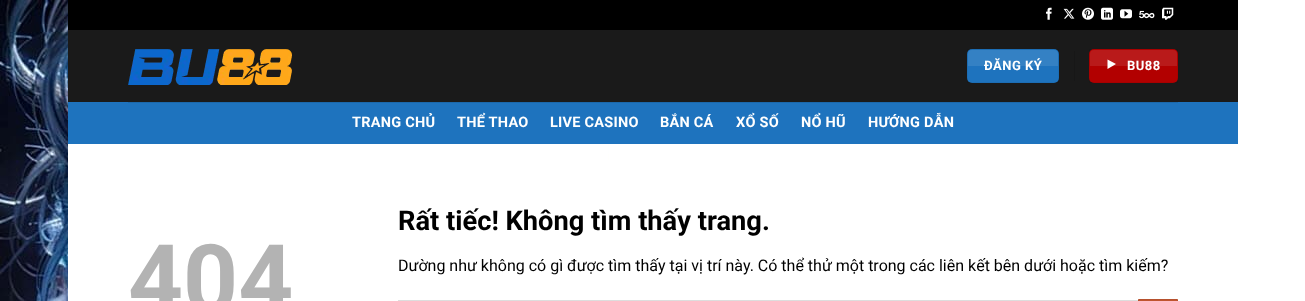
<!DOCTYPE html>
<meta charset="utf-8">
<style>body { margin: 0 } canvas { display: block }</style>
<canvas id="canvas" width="1305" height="301"></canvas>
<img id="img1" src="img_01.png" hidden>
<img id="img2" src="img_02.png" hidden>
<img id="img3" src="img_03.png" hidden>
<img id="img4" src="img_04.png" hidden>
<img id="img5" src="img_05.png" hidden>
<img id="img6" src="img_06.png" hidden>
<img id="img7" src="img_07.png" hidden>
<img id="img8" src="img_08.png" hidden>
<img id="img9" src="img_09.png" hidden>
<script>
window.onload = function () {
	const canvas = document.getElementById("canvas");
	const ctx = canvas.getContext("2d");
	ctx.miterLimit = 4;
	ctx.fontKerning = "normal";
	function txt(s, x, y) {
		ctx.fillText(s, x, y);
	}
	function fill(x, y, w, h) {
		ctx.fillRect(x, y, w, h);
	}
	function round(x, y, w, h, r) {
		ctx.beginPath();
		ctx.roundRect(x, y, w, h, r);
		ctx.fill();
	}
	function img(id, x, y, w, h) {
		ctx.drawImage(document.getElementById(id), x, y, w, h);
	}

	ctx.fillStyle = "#FFFFFF";
	fill(0, 0, 1305, 301);
	img("img1", 0, 0, 1305, 301);
	fill(68, 144, 540, 157);
	ctx.fillStyle = "#000000";
	fill(68, 0, 1170, 30);
	img("img2", 1046, 7, 6, 13);
	img("img3", 1063, 8, 12, 11);
	img("img4", 1082, 7, 12, 13);
	img("img5", 1101, 7, 12, 13);
	img("img6", 1120, 9, 12, 10);
	img("img7", 1139, 10, 16, 9);
	img("img8", 1162, 7, 12, 13);
	ctx.fillStyle = "#1A1A1A";
	fill(68, 30, 1170, 72);
	img("img9", 128, 49, 164, 36);
	ctx.fillStyle = "#1E73BE";
	round(967, 49, 92, 34, 5);
	ctx.strokeStyle = "rgba(0, 0, 0, 0.05)";
	ctx.strokeRect(967.5, 49.5, 91, 33);
	ctx.fillStyle = "rgba(255, 255, 255, 0.1)";
	ctx.beginPath();
	ctx.roundRect(968, 50, 90, 16, [4, 4, 0, 0]);
	ctx.fill();
	ctx.fillStyle = "#171717";
	fill(1074, 51, 1, 30);
	ctx.fillStyle = "#B20000";
	round(1089, 49, 89, 34, 5);
	ctx.strokeRect(1089.5, 49.5, 88, 33);
	ctx.fillStyle = "#FFFFFF";
	ctx.beginPath();
	ctx.moveTo(1107.5, 59.5);
	ctx.lineTo(1116, 64);
	ctx.lineTo(1107.5, 69);
	ctx.closePath();
	ctx.fill();
	ctx.fillStyle = "rgba(255, 255, 255, 0.1)";
	ctx.beginPath();
	ctx.roundRect(1090, 50, 87, 16, [4, 4, 0, 0]);
	ctx.fill();
	ctx.fillStyle = "#1E73BE";
	fill(68, 102, 1170, 42);
	ctx.fillStyle = "#1B68AB";
	fill(128, 102, 1050, 1);
	ctx.strokeStyle = "#DDDDDD";
	ctx.strokeRect(398.5, 300.5, 739, 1);
	ctx.fillStyle = "#C05530";
	ctx.beginPath();
	ctx.rect(1138.5, 299.5, 39, 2);
	ctx.fill();
	ctx.strokeStyle = "#B6512E";
	ctx.stroke();
	ctx.letterSpacing = "0.5px";
	ctx.font = "bold 13px Roboto";
	ctx.fillStyle = "#FFFFFF";
	txt("ĐĂNG KÝ", 984, 70);
	txt("BU88", 1127, 70);
	ctx.letterSpacing = "0.25px";
	ctx.font = "bold 14.5px Roboto";
	txt("TRANG CHỦ", 352, 127);
	txt("THỂ THAO", 457, 127);
	txt("LIVE CASINO", 550, 127);
	txt("BẮN CÁ", 660, 127);
	txt("XỔ SỐ", 736, 127);
	txt("NỔ HŨ", 801, 127);
	txt("HƯỚNG DẪN", 868, 127);
	ctx.letterSpacing = "0px";
	ctx.font = "bold 96px Roboto";
	ctx.fillStyle = "#B3B3B3";
	txt("404", 128, 313);
	ctx.font = "bold 27.25px Roboto";
	ctx.fillStyle = "#000000";
	txt("Rất tiếc! Không tìm thấy trang.", 398, 230);
	ctx.font = "16px Roboto";
	txt("Dường như không có gì được tìm thấy tại vị trí này. Có thể thử một trong các liên kết bên dưới hoặc tìm kiếm?", 398, 271);
};
</script>
